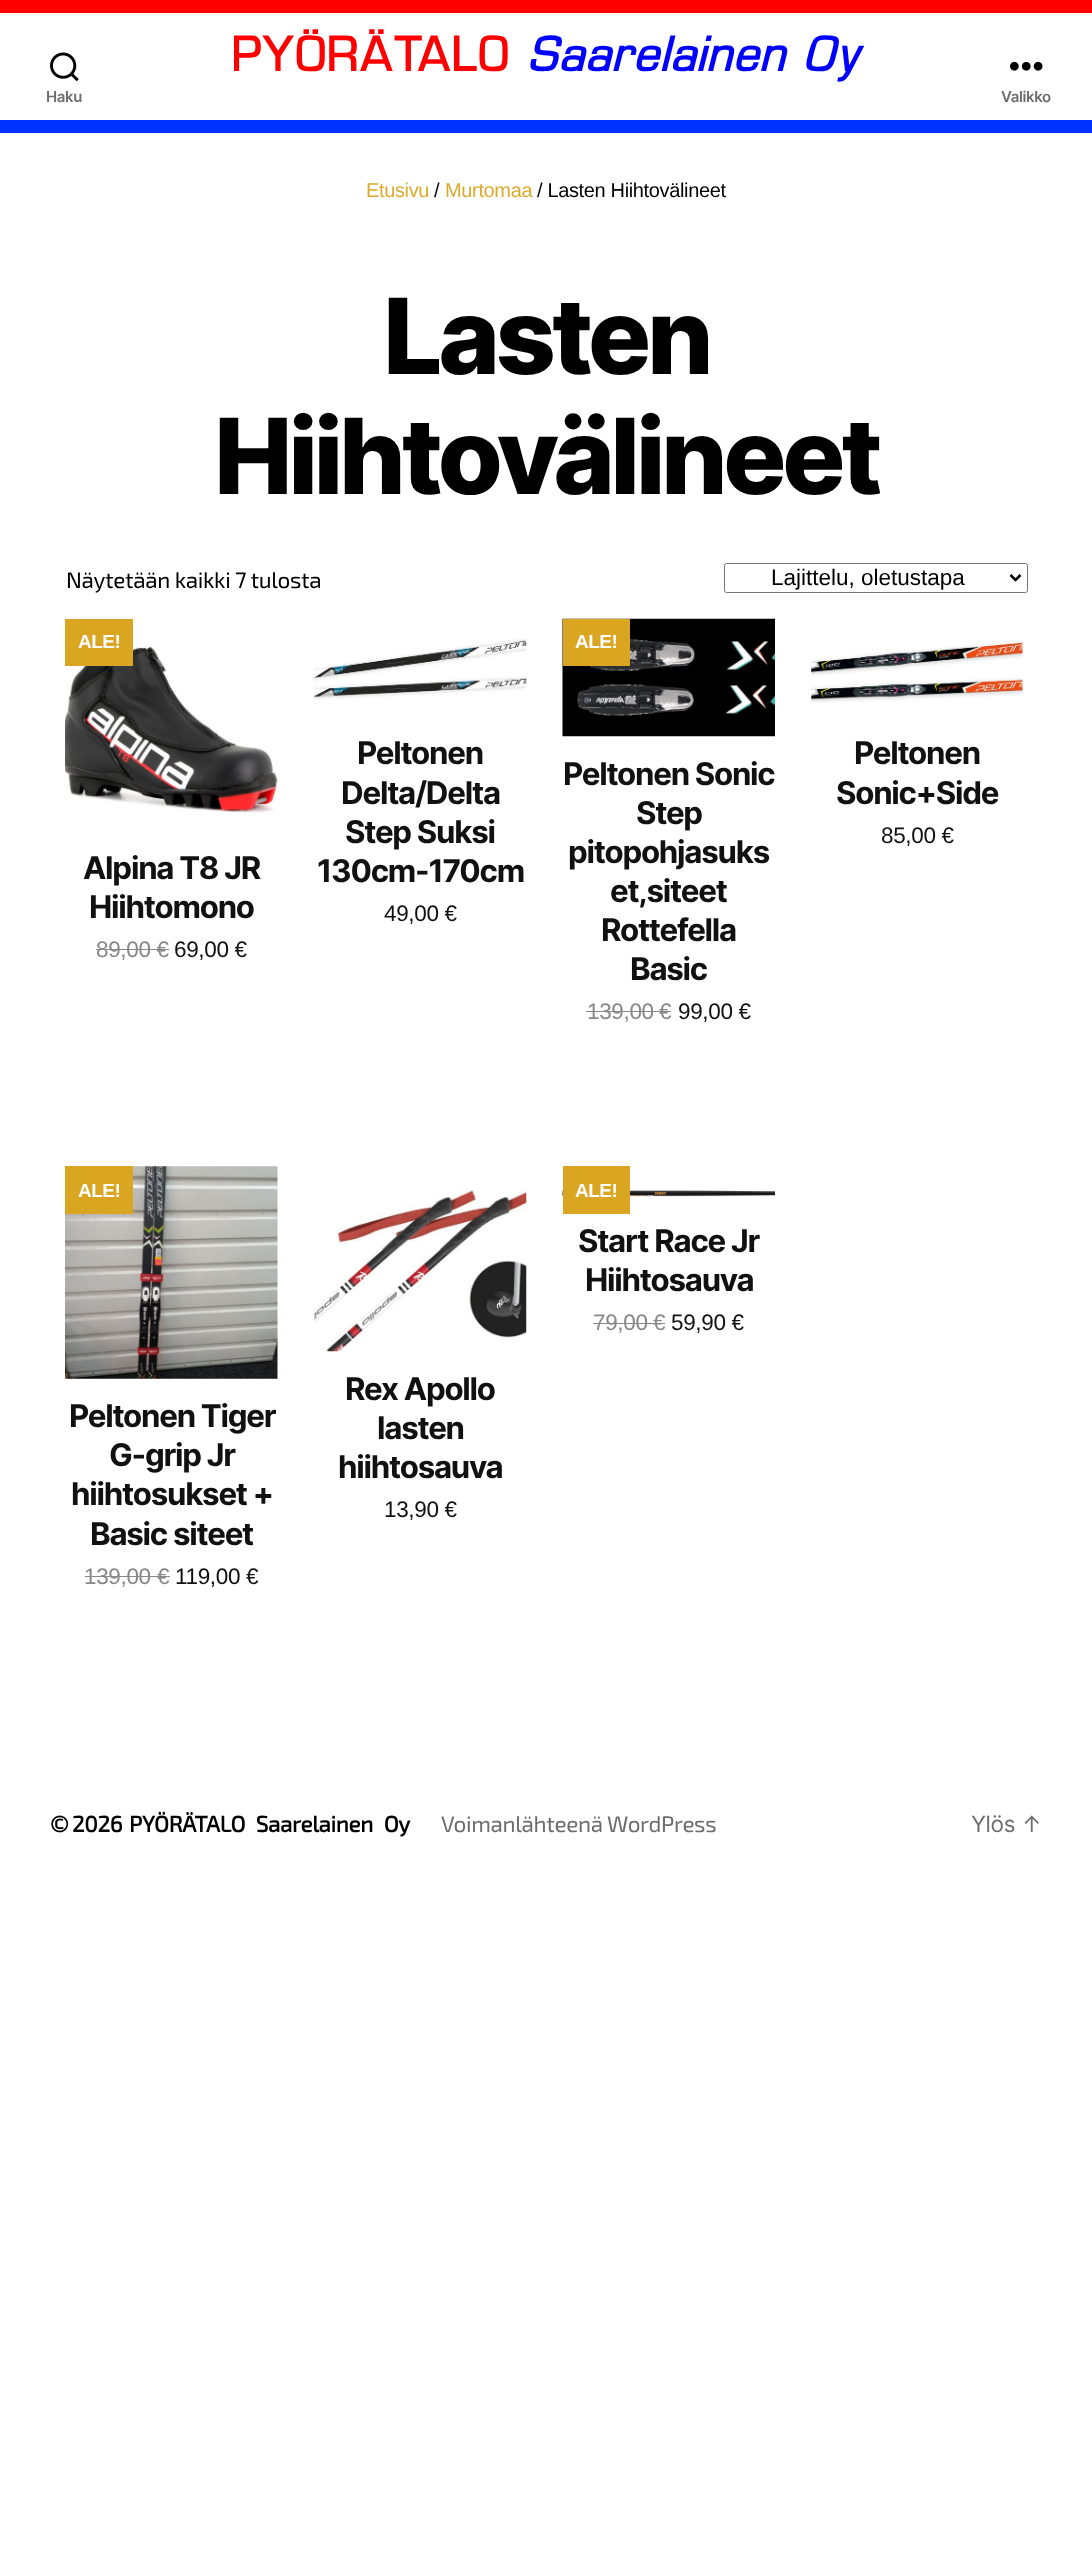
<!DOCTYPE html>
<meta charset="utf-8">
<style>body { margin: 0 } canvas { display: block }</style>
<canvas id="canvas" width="1092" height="2553"></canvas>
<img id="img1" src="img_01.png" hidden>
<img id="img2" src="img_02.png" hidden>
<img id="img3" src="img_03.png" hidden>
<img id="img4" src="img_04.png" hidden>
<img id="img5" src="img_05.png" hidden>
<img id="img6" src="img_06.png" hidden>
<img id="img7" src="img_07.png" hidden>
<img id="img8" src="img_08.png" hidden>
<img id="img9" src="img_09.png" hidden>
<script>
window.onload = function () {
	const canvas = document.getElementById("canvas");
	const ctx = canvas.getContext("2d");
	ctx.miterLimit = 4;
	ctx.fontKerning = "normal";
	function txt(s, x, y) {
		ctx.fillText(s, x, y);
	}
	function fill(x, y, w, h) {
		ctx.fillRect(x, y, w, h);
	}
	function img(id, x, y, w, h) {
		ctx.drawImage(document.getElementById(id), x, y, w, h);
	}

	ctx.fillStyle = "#FFFFFF";
	fill(0, 0, 1092, 2553);
	ctx.fillStyle = "#FF0000";
	fill(0, 0, 1092, 13);
	ctx.fillStyle = "#0033FF";
	fill(0, 120, 1092, 13);
	img("img1", 50, 52, 29, 30);
	img("img2", 1010, 61, 33, 10);
	ctx.beginPath();
	ctx.roundRect(724.5, 563.5, 303, 29, 2);
	ctx.strokeStyle = "#767676";
	ctx.stroke();
	ctx.beginPath();
	ctx.moveTo(1010.5, 575);
	ctx.lineTo(1015.5, 580);
	ctx.lineTo(1020.5, 575);
	ctx.strokeStyle = "#000000";
	ctx.lineWidth = 2.5;
	ctx.stroke();
	img("img3", 65, 646, 213, 168);
	ctx.fillStyle = "#DAA520";
	fill(65, 619, 68, 47);
	ctx.fillStyle = "#888888";
	fill(96, 949, 73, 1);
	img("img4", 313, 638, 214, 62);
	img("img5", 562, 618, 213, 119);
	ctx.fillStyle = "#DAA520";
	fill(563, 619, 67, 47);
	ctx.fillStyle = "#888888";
	fill(586, 1011, 74, 1);
	fill(660, 1011, 11, 1);
	img("img6", 811, 640, 212, 63);
	img("img7", 65, 1166, 213, 213);
	ctx.fillStyle = "#DAA520";
	fill(65, 1166, 68, 48);
	ctx.fillStyle = "#888888";
	fill(85, 1576, 73, 1);
	fill(158, 1576, 12, 1);
	img("img8", 562, 1190, 213, 7);
	ctx.fillStyle = "#DAA520";
	fill(563, 1166, 67, 48);
	ctx.fillStyle = "#888888";
	fill(593, 1323, 61, 1);
	fill(654, 1323, 11, 1);
	img("img9", 313, 1189, 214, 163);
	ctx.letterSpacing = "2.5px";
	ctx.font = "bold 51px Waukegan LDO";
	ctx.fillStyle = "#FF0000";
	txt("PYÖRÄTALO", 232, 71);
	ctx.font = "italic bold 51px Waukegan LDO";
	ctx.fillStyle = "#0000FF";
	txt("Saarelainen Oy", 527, 71);
	ctx.letterSpacing = "-0.35px";
	ctx.font = "600 15px Inter";
	ctx.fillStyle = "#6D6D6D";
	txt("Haku", 46, 102);
	txt("Valikko", 1001, 102);
	ctx.font = "20px Liberation Sans";
	ctx.fillStyle = "#DCAA2E";
	txt("Etusivu", 366, 197);
	ctx.fillStyle = "#000000";
	txt("/", 434, 197);
	ctx.fillStyle = "#DCAA2E";
	txt("Murtomaa", 445, 197);
	ctx.fillStyle = "#000000";
	txt("/ Lasten Hiihtovälineet", 537, 197);
	ctx.letterSpacing = "-4.4px";
	ctx.font = "800 105px Inter";
	txt("Lasten", 383, 374);
	txt("Hiihtovälineet", 214, 494);
	ctx.letterSpacing = "-0.35px";
	ctx.font = "22.5px 'Exo 2'";
	txt("Näytetään kaikki 7 tulosta", 66, 588);
	ctx.letterSpacing = "0px";
	ctx.font = "22.5px Liberation Sans";
	txt("Lajittelu, oletustapa", 771, 585);
	ctx.letterSpacing = "-0.5px";
	ctx.font = "bold 19px Liberation Sans";
	ctx.fillStyle = "#FFFFFF";
	txt("ALE!", 78, 648);
	ctx.letterSpacing = "-1.25px";
	ctx.font = "bold 31.25px Inter";
	ctx.fillStyle = "#111111";
	txt("Alpina T8 JR", 83, 879);
	txt("Hiihtomono", 89, 918);
	ctx.letterSpacing = "-0.35px";
	ctx.font = "22.5px Liberation Sans";
	ctx.fillStyle = "#888888";
	txt("89,00 €", 96, 957);
	ctx.fillStyle = "#111111";
	txt("69,00 €", 174, 957);
	ctx.letterSpacing = "-1.25px";
	ctx.font = "bold 31.25px Inter";
	txt("Peltonen", 357, 764);
	txt("Delta/Delta", 341, 804);
	txt("Step Suksi", 345, 843);
	txt("130cm-170cm", 317, 882);
	ctx.letterSpacing = "-0.35px";
	ctx.font = "22.5px Liberation Sans";
	txt("49,00 €", 384, 921);
	ctx.letterSpacing = "-0.5px";
	ctx.font = "bold 19px Liberation Sans";
	ctx.fillStyle = "#FFFFFF";
	txt("ALE!", 575, 648);
	ctx.letterSpacing = "-1.25px";
	ctx.font = "bold 31.25px Inter";
	ctx.fillStyle = "#111111";
	txt("Peltonen Sonic", 563, 785);
	txt("Step", 636, 824);
	txt("pitopohjasuks", 568, 863);
	txt("et,siteet", 610, 902);
	txt("Rottefella", 601, 941);
	txt("Basic", 630, 980);
	ctx.letterSpacing = "-0.35px";
	ctx.font = "22.5px Liberation Sans";
	ctx.fillStyle = "#888888";
	txt("139,00", 587, 1019);
	txt("€", 659, 1019);
	ctx.fillStyle = "#111111";
	txt("99,00 €", 678, 1019);
	ctx.letterSpacing = "-1.25px";
	ctx.font = "bold 31.25px Inter";
	txt("Peltonen", 854, 764);
	txt("Sonic+Side", 836, 804);
	ctx.letterSpacing = "-0.35px";
	ctx.font = "22.5px Liberation Sans";
	txt("85,00 €", 881, 843);
	ctx.letterSpacing = "-0.5px";
	ctx.font = "bold 19px Liberation Sans";
	ctx.fillStyle = "#FFFFFF";
	txt("ALE!", 78, 1197);
	ctx.letterSpacing = "-1.25px";
	ctx.font = "bold 31.25px Inter";
	ctx.fillStyle = "#111111";
	txt("Peltonen Tiger", 69, 1427);
	txt("G-grip Jr", 109, 1466);
	txt("hiihtosukset +", 71, 1505);
	txt("Basic siteet", 90, 1545);
	ctx.letterSpacing = "-0.35px";
	ctx.font = "22.5px Liberation Sans";
	ctx.fillStyle = "#888888";
	txt("139,00", 84, 1584);
	txt("€", 157, 1584);
	ctx.fillStyle = "#111111";
	txt("119,00 €", 175, 1584);
	ctx.letterSpacing = "-0.5px";
	ctx.font = "bold 19px Liberation Sans";
	ctx.fillStyle = "#FFFFFF";
	txt("ALE!", 575, 1197);
	ctx.letterSpacing = "-1.25px";
	ctx.font = "bold 31.25px Inter";
	ctx.fillStyle = "#111111";
	txt("Start Race Jr", 578, 1252);
	txt("Hiihtosauva", 585, 1291);
	ctx.letterSpacing = "-0.35px";
	ctx.font = "22.5px Liberation Sans";
	ctx.fillStyle = "#888888";
	txt("79,00", 593, 1330);
	txt("€", 653, 1330);
	ctx.fillStyle = "#111111";
	txt("59,90 €", 671, 1330);
	ctx.letterSpacing = "-1.25px";
	ctx.font = "bold 31.25px Inter";
	txt("Rex Apollo", 345, 1400);
	txt("lasten", 377, 1439);
	txt("hiihtosauva", 338, 1478);
	ctx.letterSpacing = "-0.35px";
	ctx.font = "22.5px Liberation Sans";
	txt("13,90 €", 384, 1517);
	ctx.font = "bold 22.5px 'Exo 2'";
	ctx.fillStyle = "#000000";
	txt("©", 50, 1832);
	txt("2026", 72, 1832);
	ctx.wordSpacing = "6px";
	txt("PYÖRÄTALO Saarelainen Oy", 129, 1832);
	ctx.wordSpacing = "0px";
	ctx.font = "22.5px 'Exo 2'";
	ctx.fillStyle = "#6D6D6D";
	txt("Voimanlähteenä WordPress", 441, 1832);
	ctx.font = "22.5px Inter";
	txt("Ylös ↑", 971, 1832);
};
</script>
